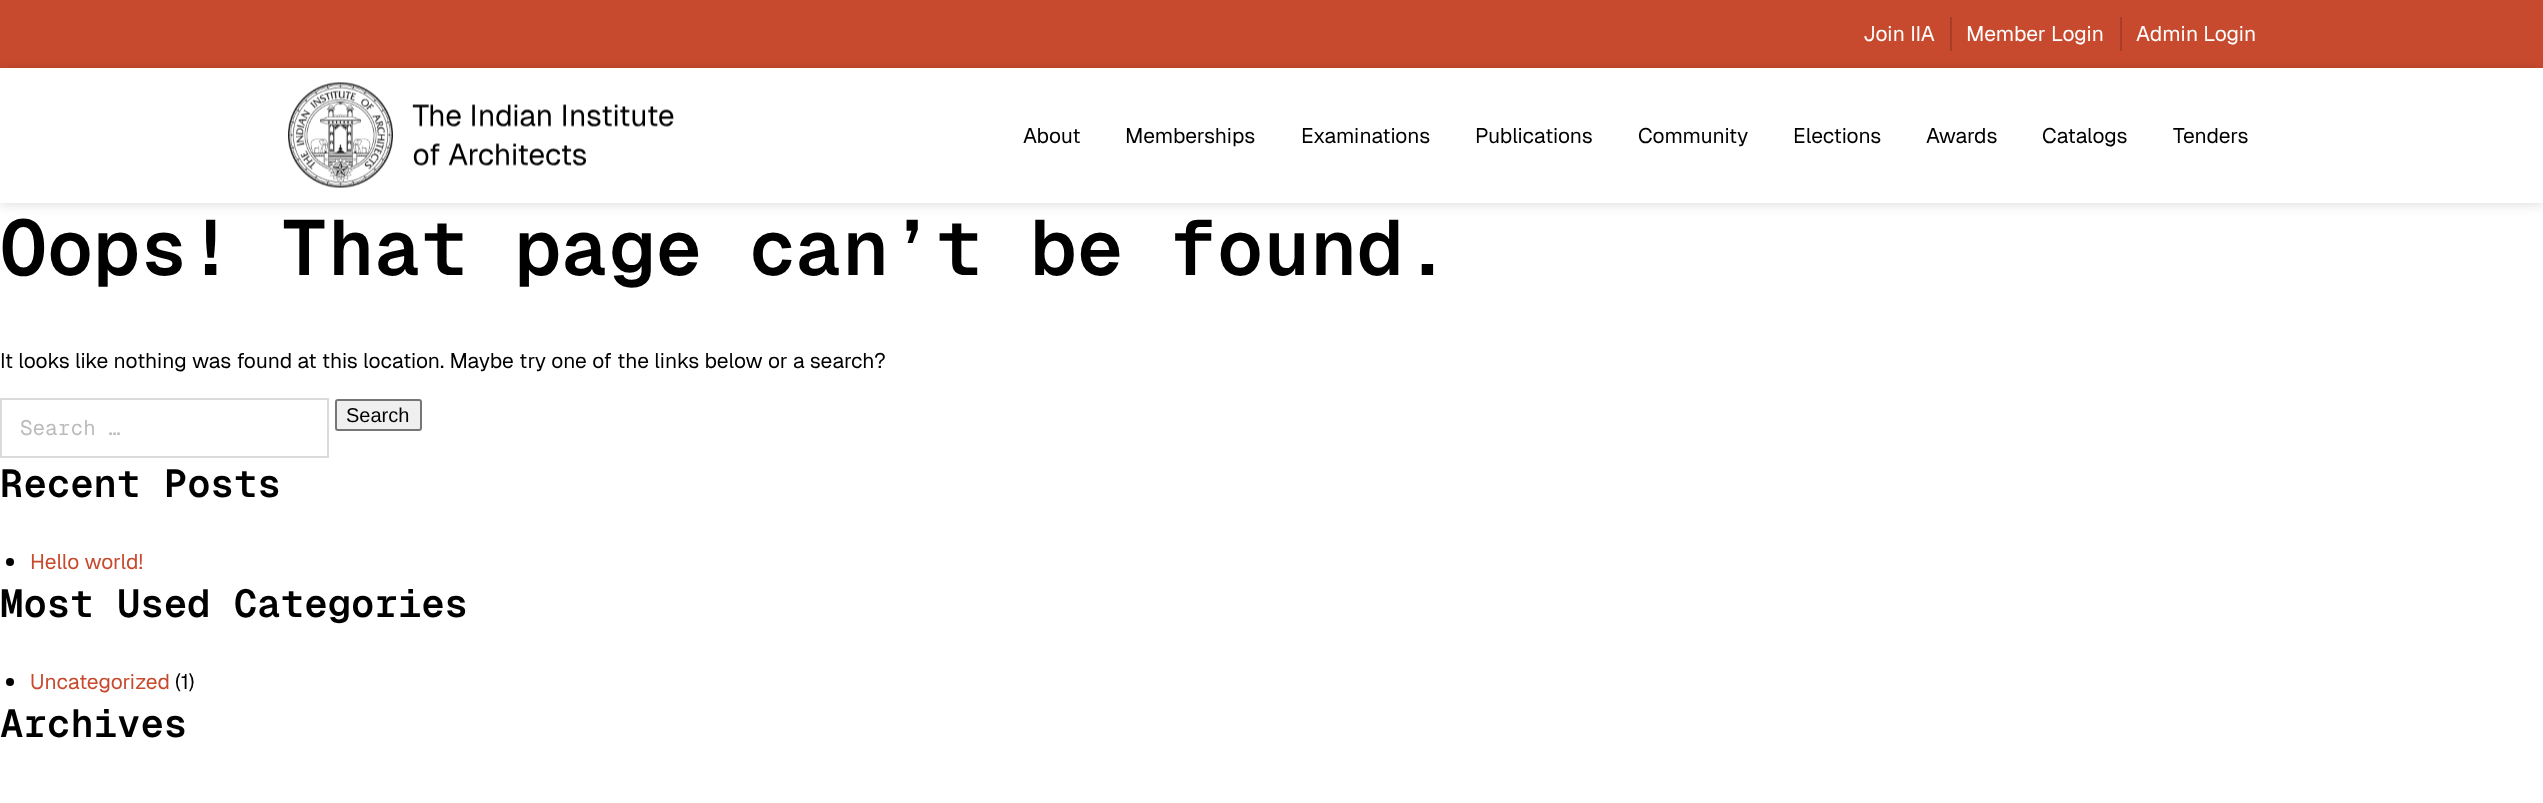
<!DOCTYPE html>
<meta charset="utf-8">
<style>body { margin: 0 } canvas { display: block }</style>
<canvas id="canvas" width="2543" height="803"></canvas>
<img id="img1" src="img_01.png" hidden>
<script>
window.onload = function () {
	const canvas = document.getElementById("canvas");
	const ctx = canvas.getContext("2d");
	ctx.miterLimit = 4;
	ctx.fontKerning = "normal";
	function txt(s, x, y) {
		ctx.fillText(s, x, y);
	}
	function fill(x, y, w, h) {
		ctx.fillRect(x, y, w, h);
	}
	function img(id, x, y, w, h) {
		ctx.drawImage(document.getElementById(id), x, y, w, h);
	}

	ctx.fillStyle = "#FFFFFF";
	fill(0, 0, 2543, 803);
	ctx.fillStyle = "#C84A2E";
	fill(0, 0, 2543, 68);
	ctx.fillStyle = "#A83E27";
	fill(1950, 17, 2, 34);
	fill(2120, 17, 2, 34);
	ctx.fillStyle = "rgba(0, 0, 0, 0.14)";
	ctx.filter = "blur(6px)";
	ctx.beginPath();
	ctx.rect(0, 69, 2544, 135);
	ctx.fill();
	ctx.filter = "none";
	ctx.fillStyle = "#FFFFFF";
	fill(0, 68, 2543, 135);
	img("img1", 288, 82, 386, 106);
	ctx.fillStyle = "#EFEFEF";
	ctx.beginPath();
	ctx.roundRect(336, 400, 85, 30, 2);
	ctx.fill();
	ctx.strokeStyle = "#767676";
	ctx.lineWidth = 2;
	ctx.stroke();
	ctx.strokeStyle = "#DADADA";
	ctx.strokeRect(1, 399, 327, 58);
	ctx.fillStyle = "#000000";
	ctx.beginPath();
	ctx.arc(10, 562, 4, 0, Math.PI * 2);
	ctx.fill();
	ctx.beginPath();
	ctx.arc(10, 682, 4, 0, Math.PI * 2);
	ctx.fill();
	ctx.font = "21px Geist";
	ctx.fillStyle = "#FFFFFF";
	txt("Join IIA", 1863, 41);
	txt("Member Login", 1966, 41);
	txt("Admin Login", 2136, 41);
	ctx.fillStyle = "#000000";
	txt("About", 1023, 143);
	txt("Memberships", 1125, 143);
	txt("Examinations", 1301, 143);
	txt("Publications", 1475, 143);
	txt("Community", 1638, 143);
	txt("Elections", 1793, 143);
	txt("Awards", 1926, 143);
	txt("Catalogs", 2042, 143);
	txt("Tenders", 2173, 143);
	ctx.font = "600 78px Geist Mono";
	txt("Oops! That page can’t be found.", 0, 275);
	ctx.font = "21px Geist";
	txt("It looks like nothing was found at this location. Maybe try one of the links below or a search?", 0, 368);
	ctx.font = "20px Liberation Sans";
	txt("Search", 346, 422);
	ctx.font = "21px Geist Mono";
	ctx.fillStyle = "#BCBCBC";
	txt("Search …", 20, 435);
	ctx.font = "600 39px Geist Mono";
	ctx.fillStyle = "#000000";
	txt("Recent Posts", 0, 497);
	ctx.font = "21px Geist";
	ctx.fillStyle = "#C84A2E";
	txt("Hello world!", 30, 569);
	ctx.font = "600 39px Geist Mono";
	ctx.fillStyle = "#000000";
	txt("Most Used Categories", 0, 617);
	ctx.font = "21px Geist";
	ctx.fillStyle = "#C84A2E";
	txt("Uncategorized", 30, 689);
	ctx.fillStyle = "#000000";
	txt("(1)", 175, 689);
	ctx.font = "600 39px Geist Mono";
	txt("Archives", 0, 737);
};
</script>
